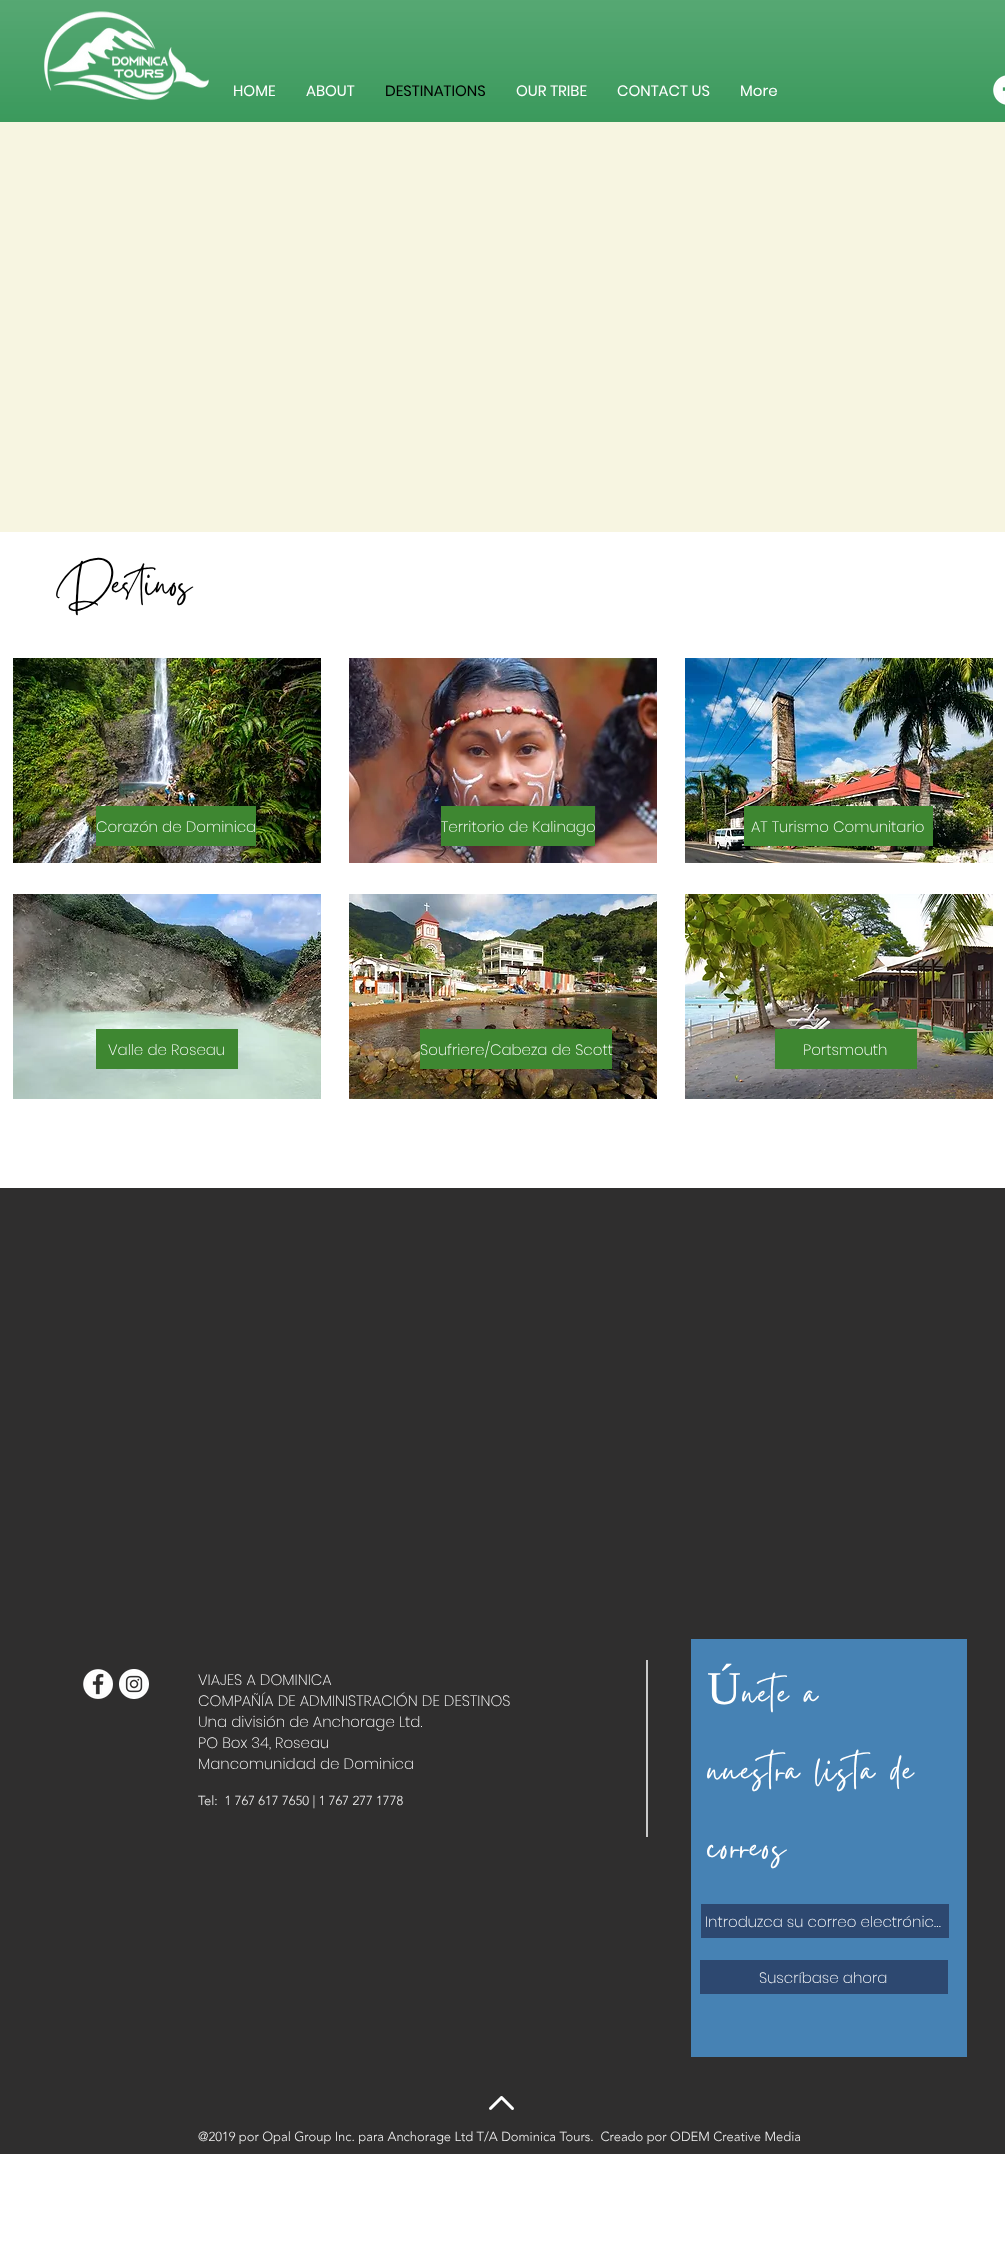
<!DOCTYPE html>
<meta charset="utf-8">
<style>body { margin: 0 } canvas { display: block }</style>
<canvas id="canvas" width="1005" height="2250"></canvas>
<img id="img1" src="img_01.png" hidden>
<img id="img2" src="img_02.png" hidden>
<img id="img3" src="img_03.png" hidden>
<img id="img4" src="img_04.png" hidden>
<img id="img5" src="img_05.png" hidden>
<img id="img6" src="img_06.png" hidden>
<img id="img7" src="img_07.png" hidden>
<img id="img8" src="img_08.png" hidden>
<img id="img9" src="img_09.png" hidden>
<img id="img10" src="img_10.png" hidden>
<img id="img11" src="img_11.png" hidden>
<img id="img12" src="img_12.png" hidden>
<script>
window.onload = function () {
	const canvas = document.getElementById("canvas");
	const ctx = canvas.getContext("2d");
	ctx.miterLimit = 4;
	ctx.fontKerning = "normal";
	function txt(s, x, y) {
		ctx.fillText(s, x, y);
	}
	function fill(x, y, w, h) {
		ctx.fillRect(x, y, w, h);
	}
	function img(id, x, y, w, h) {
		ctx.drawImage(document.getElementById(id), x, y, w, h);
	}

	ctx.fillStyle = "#FFFFFF";
	fill(0, 0, 1005, 2250);
	ctx.fillStyle = "#1C8A43";
	fill(0, 0, 1005, 122);
	img("img1", 0, 0, 1005, 122);
	img("img2", 44, 11, 165, 90);
	img("img3", 993, 75, 12, 30);
	ctx.fillStyle = "#F7F5E1";
	fill(0, 122, 1005, 410);
	img("img4", 13, 658, 308, 205);
	img("img5", 349, 658, 308, 205);
	img("img6", 685, 658, 308, 205);
	ctx.fillStyle = "#3E8731";
	fill(96, 806, 160, 40);
	fill(441, 806, 154, 40);
	fill(744, 806, 189, 40);
	img("img7", 13, 894, 308, 205);
	img("img8", 349, 894, 308, 205);
	img("img9", 685, 894, 308, 205);
	fill(96, 1029, 142, 40);
	fill(420, 1029, 192, 40);
	fill(775, 1029, 142, 40);
	ctx.fillStyle = "#2F2E2E";
	fill(0, 1188, 1005, 966);
	img("img10", 83, 1669, 30, 30);
	img("img11", 119, 1669, 30, 30);
	ctx.fillStyle = "#C9C9C9";
	fill(646, 1660, 2, 177);
	ctx.fillStyle = "#4682B4";
	fill(691, 1639, 276, 418);
	ctx.fillStyle = "#2D4870";
	fill(701, 1904, 248, 34);
	fill(700, 1960, 248, 34);
	img("img12", 489, 2096, 25, 14);
	ctx.font = "15px Poppins";
	ctx.fillStyle = "#FFFFFF";
	txt("HOME", 233, 96);
	txt("ABOUT", 306, 96);
	ctx.fillStyle = "#000000";
	txt("DESTINATIONS", 385, 96);
	ctx.fillStyle = "#FFFFFF";
	txt("OUR TRIBE", 516, 96);
	txt("CONTACT US", 617, 96);
	txt("More", 740, 96);
	ctx.font = "47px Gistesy";
	ctx.fillStyle = "#000000";
	txt("Destinos", 57, 595);
	ctx.font = "200 15px Poppins";
	ctx.fillStyle = "#FFFFFF";
	txt("Corazón de Dominica", 96, 832);
	txt("Territorio de Kalinago", 441, 832);
	txt("AT Turismo Comunitario", 751, 832);
	txt("Valle de Roseau", 108, 1055);
	txt("Soufriere/Cabeza de Scott", 420, 1055);
	txt("Portsmouth", 803, 1055);
	txt("VIAJES A DOMINICA", 198, 1685);
	txt("COMPAÑÍA DE ADMINISTRACIÓN DE DESTINOS", 198, 1706);
	txt("Una división de Anchorage Ltd.", 198, 1727);
	txt("PO Box 34, Roseau", 198, 1748);
	txt("Mancomunidad de Dominica", 198, 1769);
	ctx.font = "300 13px 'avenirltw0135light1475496'";
	ctx.fillStyle = "#F2F2F2";
	txt("Tel:  1 767 617 7650 | 1 767 277 1778", 198, 1805);
	ctx.letterSpacing = "1.9px";
	ctx.font = "47px Liberation Serif";
	ctx.fillStyle = "#FFFFFF";
	txt("Ú", 707, 1704);
	ctx.font = "47px Gistesy";
	txt("nete a", 742, 1704);
	txt("nuestra lista de", 707, 1781);
	txt("correos", 707, 1858);
	ctx.letterSpacing = "0px";
	ctx.font = "200 15px Poppins";
	txt("Introduzca su correo electrónic…", 705, 1927);
	txt("Suscríbase ahora", 759, 1983);
	ctx.font = "300 13px 'avenirltw0135light1475496'";
	ctx.fillStyle = "#F2F2F2";
	txt("@2019 por Opal Group Inc. para Anchorage Ltd T/A Dominica Tours.  Creado por ODEM Creative Media", 198, 2141);
};
</script>
